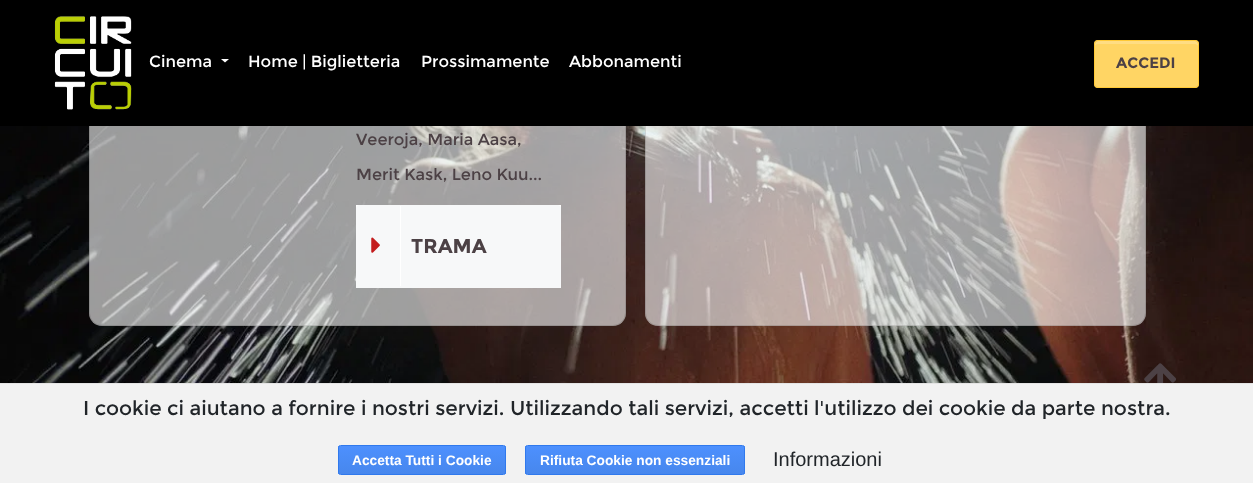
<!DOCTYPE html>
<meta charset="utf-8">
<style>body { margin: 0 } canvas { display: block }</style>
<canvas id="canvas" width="1253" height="483"></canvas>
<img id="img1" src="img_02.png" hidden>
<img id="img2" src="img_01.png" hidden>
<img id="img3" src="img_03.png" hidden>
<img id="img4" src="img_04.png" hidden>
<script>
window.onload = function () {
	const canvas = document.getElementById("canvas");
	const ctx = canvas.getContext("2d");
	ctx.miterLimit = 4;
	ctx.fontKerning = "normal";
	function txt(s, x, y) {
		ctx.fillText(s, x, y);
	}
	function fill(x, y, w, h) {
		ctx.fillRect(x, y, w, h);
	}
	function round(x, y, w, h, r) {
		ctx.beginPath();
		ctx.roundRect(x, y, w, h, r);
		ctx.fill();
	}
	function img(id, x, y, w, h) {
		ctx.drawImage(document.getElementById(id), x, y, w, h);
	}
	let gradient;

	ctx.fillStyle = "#FFFFFF";
	fill(0, 0, 1253, 483);
	img("img1", 0, 126, 1253, 257);
	ctx.fillStyle = "rgba(255, 255, 255, 0.6)";
	round(89, -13, 537, 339, 13);
	ctx.beginPath();
	ctx.roundRect(89.5, -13.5, 536, 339, 12.5);
	ctx.strokeStyle = "rgba(0, 0, 0, 0.12)";
	ctx.stroke();
	round(645, -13, 501, 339, 13);
	ctx.beginPath();
	ctx.roundRect(645.5, -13.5, 500, 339, 12.5);
	ctx.stroke();
	ctx.fillStyle = "#000000";
	fill(0, 0, 1253, 126);
	img("img2", 54, 16, 78, 94);
	ctx.fillStyle = "#FFFFFF";
	ctx.beginPath();
	ctx.moveTo(221, 59);
	ctx.lineTo(229, 59);
	ctx.lineTo(225, 62.5);
	ctx.closePath();
	ctx.fill();
	ctx.fillStyle = "#FFD564";
	round(1094, 40, 105, 48, 4);
	ctx.fillStyle = "#FFDD83";
	ctx.beginPath();
	ctx.moveTo(1098, 44);
	ctx.lineTo(1195, 44);
	ctx.bezierCurveTo(1196, 44, 1198, 45, 1198, 46);
	ctx.lineTo(1198, 44);
	ctx.bezierCurveTo(1198, 42, 1197, 41, 1196, 41);
	ctx.lineTo(1098, 41);
	ctx.bezierCurveTo(1096, 41, 1095, 42, 1095, 44);
	ctx.lineTo(1095, 46);
	ctx.bezierCurveTo(1095, 45, 1096, 44, 1098, 44);
	ctx.closePath();
	ctx.fill();
	ctx.beginPath();
	ctx.roundRect(1094.5, 40.5, 104, 47, 3.5);
	ctx.strokeStyle = "#FFC936";
	ctx.stroke();
	ctx.fillStyle = "#FFFFFF";
	fill(356, 205, 205, 4);
	ctx.fillStyle = "#F7F8F9";
	ctx.beginPath();
	ctx.roundRect(356, 205, 205, 83, [4, 4, 0, 0]);
	ctx.fill();
	ctx.fillStyle = "#FFFFFF";
	fill(400, 206, 1, 80);
	img("img3", 371, 237, 9, 16);
	ctx.fillStyle = "#F2F2F2";
	fill(0, 384, 1253, 99);
	ctx.fillStyle = "#E4E4E4";
	fill(0, 383, 1253, 1);
	ctx.save();
	ctx.beginPath();
	ctx.roundRect(338, 445, 168, 30, 2.5);
	ctx.clip();
	gradient = ctx.createLinearGradient(422, 446, 422, 474);
	gradient.addColorStop(0, "#4D90FE");
	gradient.addColorStop(1, "#4787ED");
	ctx.fillStyle = gradient;
	fill(338, 446, 168, 28);
	ctx.restore();
	ctx.beginPath();
	ctx.roundRect(338.5, 445.5, 167, 29, 2);
	ctx.strokeStyle = "#3079ED";
	ctx.stroke();
	ctx.save();
	ctx.beginPath();
	ctx.roundRect(525, 445, 220, 30, 2.5);
	ctx.clip();
	gradient = ctx.createLinearGradient(635, 446, 635, 474);
	gradient.addColorStop(0, "#4D90FE");
	gradient.addColorStop(1, "#4787ED");
	ctx.fillStyle = gradient;
	fill(525, 446, 220, 28);
	ctx.restore();
	ctx.beginPath();
	ctx.roundRect(525.5, 445.5, 219, 29, 2);
	ctx.stroke();
	img("img4", 1144, 363, 32, 20);
	ctx.font = "16.25px Montserrat";
	ctx.fillStyle = "#FFFFFF";
	txt("Cinema", 149, 67);
	txt("Home | Biglietteria", 248, 67);
	txt("Prossimamente", 421, 67);
	txt("Abbonamenti", 569, 67);
	ctx.font = "bold 15px Montserrat";
	ctx.fillStyle = "#4C4145";
	txt("ACCEDI", 1116, 68);
	ctx.font = "16.25px Montserrat";
	txt("Veeroja, Maria Aasa,", 356, 145);
	txt("Merit Kask, Leno Kuu...", 356, 180);
	ctx.font = "bold 20px Montserrat";
	txt("TRAMA", 411, 253);
	ctx.font = "20px Montserrat";
	ctx.fillStyle = "#212529";
	txt("I cookie ci aiutano a fornire i nostri servizi. Utilizzando tali servizi, accetti l'utilizzo dei cookie da parte nostra.", 83, 415);
	ctx.font = "bold 13.75px Liberation Sans";
	ctx.fillStyle = "#FFFFFF";
	txt("Accetta Tutti i Cookie", 352, 465);
	txt("Rifiuta Cookie non essenziali", 540, 465);
	ctx.font = "20px Liberation Sans";
	ctx.fillStyle = "#212529";
	txt("Informazioni", 773, 466);
};
</script>
